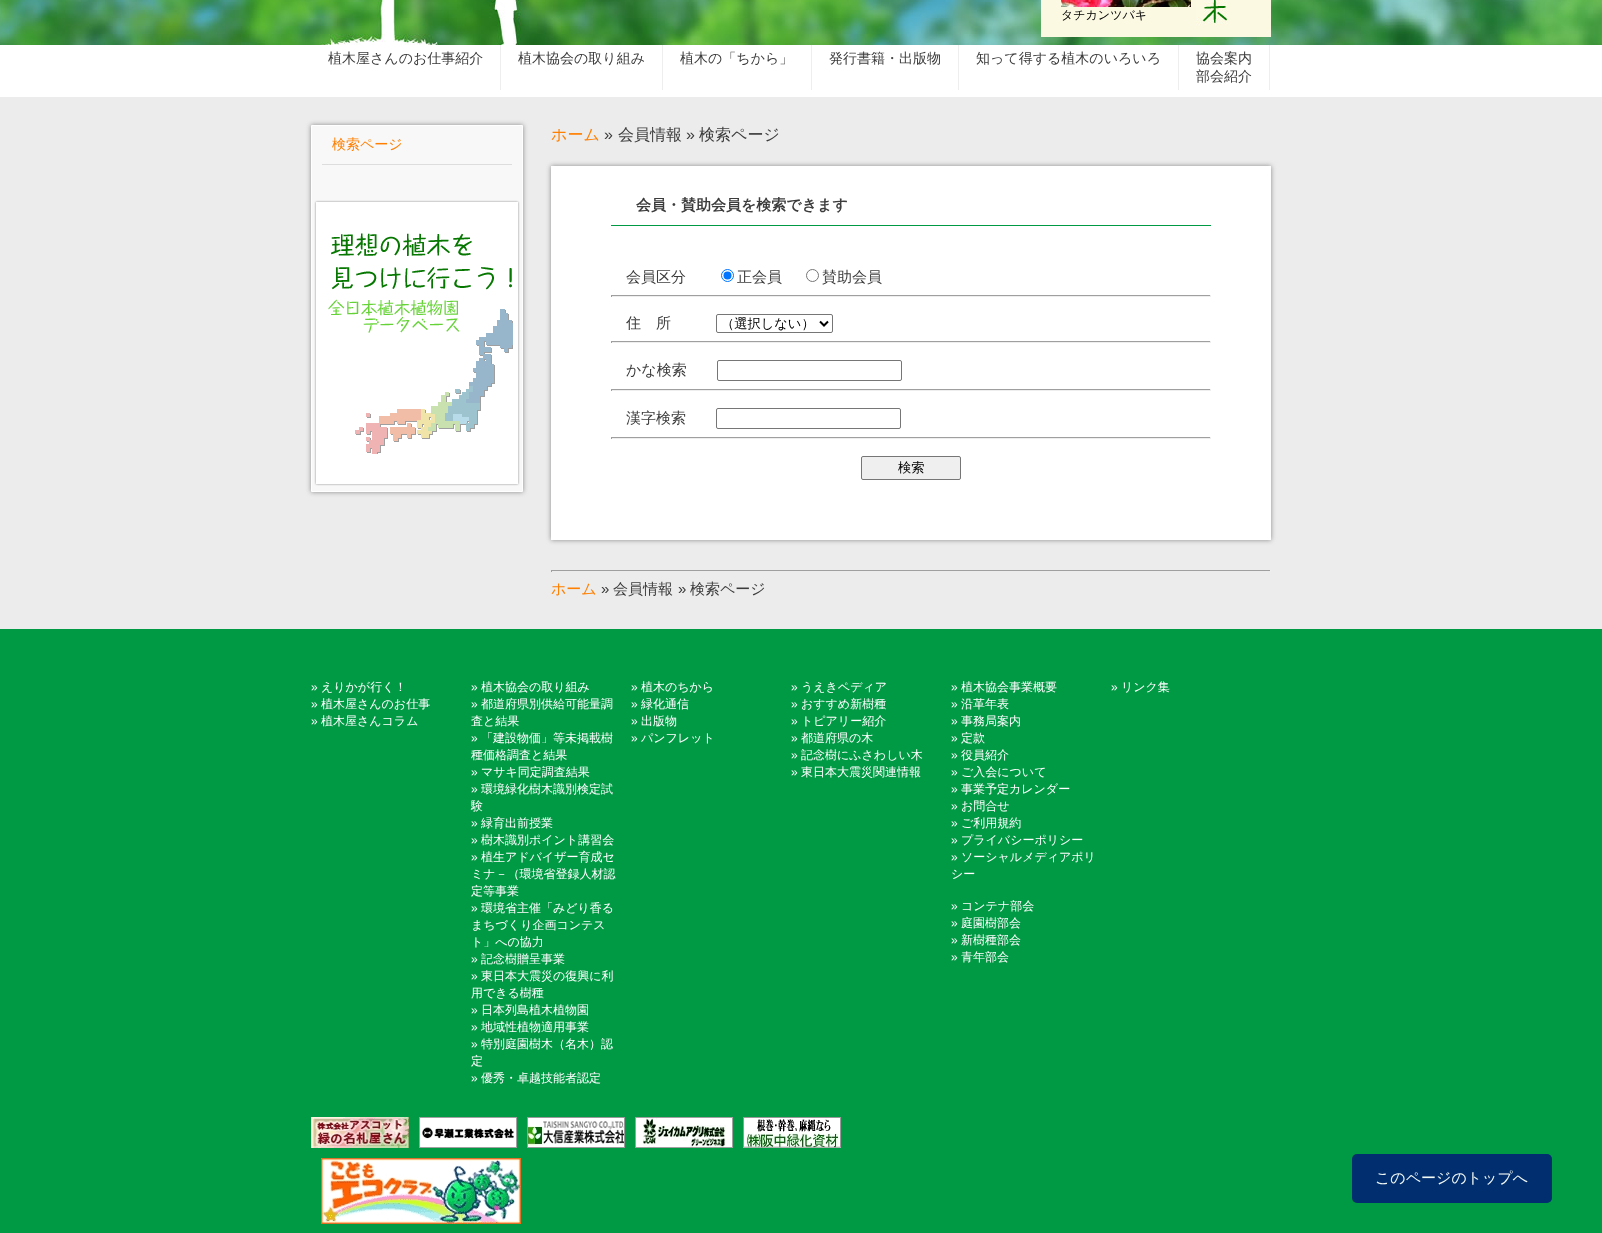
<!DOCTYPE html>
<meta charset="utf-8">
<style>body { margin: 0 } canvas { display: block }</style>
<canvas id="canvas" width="1602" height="1233"></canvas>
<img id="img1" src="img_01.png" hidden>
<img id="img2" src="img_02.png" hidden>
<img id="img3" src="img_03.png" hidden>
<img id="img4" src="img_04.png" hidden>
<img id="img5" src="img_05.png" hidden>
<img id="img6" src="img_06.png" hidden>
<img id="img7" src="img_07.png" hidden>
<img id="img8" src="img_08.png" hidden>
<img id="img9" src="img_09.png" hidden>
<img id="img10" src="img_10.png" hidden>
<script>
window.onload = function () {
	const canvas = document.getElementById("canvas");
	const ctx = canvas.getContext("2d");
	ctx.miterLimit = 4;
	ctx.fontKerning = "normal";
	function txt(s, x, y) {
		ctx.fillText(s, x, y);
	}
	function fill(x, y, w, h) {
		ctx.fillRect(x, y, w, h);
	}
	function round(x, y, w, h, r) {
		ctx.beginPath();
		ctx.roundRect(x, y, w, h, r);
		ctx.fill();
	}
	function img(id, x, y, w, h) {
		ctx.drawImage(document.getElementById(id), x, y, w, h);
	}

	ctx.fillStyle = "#009A44";
	fill(0, 0, 1602, 1233);
	img("img1", 0, 0, 1602, 45);
	ctx.fillStyle = "#FCF9E3";
	fill(1041, 0, 230, 37);
	img("img2", 1196, 0, 32, 25);
	img("img3", 1061, 0, 130, 7);
	ctx.fillStyle = "#FFFFFF";
	fill(0, 45, 1602, 52);
	ctx.fillStyle = "#ECECEC";
	fill(0, 97, 1602, 532);
	ctx.fillStyle = "#EEEEEE";
	fill(500, 45, 1, 45);
	fill(662, 45, 1, 45);
	fill(811, 45, 1, 45);
	fill(958, 45, 1, 45);
	fill(1178, 45, 1, 45);
	fill(1269, 45, 1, 45);
	ctx.fillStyle = "#888888";
	ctx.filter = "blur(2.5px)";
	ctx.beginPath();
	ctx.rect(311, 125, 212, 367);
	ctx.fill();
	ctx.filter = "none";
	ctx.fillStyle = "#F8F8F8";
	ctx.beginPath();
	ctx.rect(311.5, 125.5, 211, 366);
	ctx.fill();
	ctx.strokeStyle = "#FFFFFF";
	ctx.stroke();
	ctx.fillStyle = "#DDDDDD";
	fill(322, 164, 190, 1);
	ctx.fillStyle = "#888888";
	ctx.filter = "blur(1px)";
	ctx.beginPath();
	ctx.rect(316, 202, 202, 282);
	ctx.fill();
	ctx.filter = "none";
	ctx.fillStyle = "#FFFFFF";
	fill(316, 202, 202, 282);
	img("img4", 328, 233, 185, 221);
	ctx.fillStyle = "#888888";
	ctx.filter = "blur(2.5px)";
	ctx.beginPath();
	ctx.rect(551, 166, 720, 374);
	ctx.fill();
	ctx.filter = "none";
	ctx.fillStyle = "#FFFFFF";
	fill(551, 166, 720, 374);
	ctx.fillStyle = "#009A44";
	fill(611, 225, 600, 1);
	ctx.beginPath();
	ctx.arc(727.5, 275.5, 6, 0, Math.PI * 2);
	ctx.strokeStyle = "#0075FF";
	ctx.stroke();
	ctx.fillStyle = "#0075FF";
	ctx.beginPath();
	ctx.arc(727.5, 275.5, 4, 0, Math.PI * 2);
	ctx.fill();
	ctx.beginPath();
	ctx.arc(812.5, 275.5, 6, 0, Math.PI * 2);
	ctx.strokeStyle = "#767676";
	ctx.stroke();
	ctx.fillStyle = "#9F9F9F";
	fill(611, 295, 600, 1);
	ctx.fillStyle = "#EEEEEE";
	fill(1210, 295, 1, 2);
	fill(611, 296, 600, 1);
	ctx.fillStyle = "#9F9F9F";
	fill(611, 295, 1, 2);
	ctx.beginPath();
	ctx.roundRect(716.5, 314.5, 116, 18, 1.5);
	ctx.stroke();
	ctx.beginPath();
	ctx.moveTo(820, 321.5);
	ctx.lineTo(824, 325.5);
	ctx.lineTo(828, 321.5);
	ctx.strokeStyle = "#000000";
	ctx.lineWidth = 2;
	ctx.stroke();
	fill(611, 341, 600, 1);
	ctx.fillStyle = "#EEEEEE";
	fill(1210, 341, 1, 2);
	fill(611, 342, 600, 1);
	ctx.fillStyle = "#9F9F9F";
	fill(611, 341, 1, 2);
	ctx.beginPath();
	ctx.roundRect(717.5, 360.5, 184, 20, 1.5);
	ctx.strokeStyle = "#767676";
	ctx.lineWidth = 1;
	ctx.stroke();
	fill(611, 389, 600, 1);
	ctx.fillStyle = "#EEEEEE";
	fill(1210, 389, 1, 2);
	fill(611, 390, 600, 1);
	ctx.fillStyle = "#9F9F9F";
	fill(611, 389, 1, 2);
	ctx.beginPath();
	ctx.roundRect(716.5, 408.5, 184, 20, 1.5);
	ctx.stroke();
	fill(611, 437, 600, 1);
	ctx.fillStyle = "#EEEEEE";
	fill(1210, 437, 1, 2);
	fill(611, 438, 600, 1);
	ctx.fillStyle = "#9F9F9F";
	fill(611, 437, 1, 2);
	ctx.fillStyle = "#EFEFEF";
	ctx.beginPath();
	ctx.roundRect(861.5, 456.5, 99, 23, 1.5);
	ctx.fill();
	ctx.stroke();
	ctx.fillStyle = "#9F9F9F";
	fill(551, 570, 720, 1);
	ctx.fillStyle = "#EEEEEE";
	fill(1270, 570, 1, 2);
	ctx.fillStyle = "#9F9F9F";
	fill(551, 570, 1, 2);
	img("img5", 311, 1117, 98, 31);
	img("img6", 419, 1117, 98, 31);
	img("img7", 527, 1117, 98, 31);
	img("img8", 635, 1117, 98, 31);
	img("img9", 743, 1117, 98, 31);
	img("img10", 321, 1158, 200, 66);
	ctx.fillStyle = "#002E6E";
	round(1352, 1154, 200, 49, 5);
	ctx.font = "500 12px WenQuanYi Zen Hei";
	ctx.fillStyle = "#000000";
	txt("タチカンツバキ", 1061, 19);
	ctx.font = "500 14px WenQuanYi Zen Hei";
	ctx.fillStyle = "#3C3C3C";
	txt("植木屋さんのお仕事紹介", 328, 63);
	txt("植木協会の取り組み", 518, 63);
	txt("植木の「ちから」", 680, 63);
	txt("発行書籍・出版物", 829, 63);
	txt("知って得する植木のいろいろ", 976, 63);
	txt("協会案内", 1196, 63);
	txt("部会紹介", 1196, 81);
	ctx.fillStyle = "#FF7F00";
	txt("検索ページ", 332, 149);
	ctx.font = "500 16px WenQuanYi Zen Hei";
	txt("ホーム", 551, 140);
	ctx.font = "16px Liberation Sans";
	ctx.fillStyle = "#3C3C3C";
	txt("»", 604, 140);
	ctx.font = "500 16px WenQuanYi Zen Hei";
	txt("会員情報", 618, 140);
	ctx.font = "16px Liberation Sans";
	txt("»", 686, 140);
	ctx.font = "500 16px WenQuanYi Zen Hei";
	txt("検索ページ", 699, 140);
	ctx.font = "bold 15px WenQuanYi Zen Hei";
	txt("会員・賛助会員を検索できます", 636, 210);
	ctx.font = "500 15px WenQuanYi Zen Hei";
	txt("会員区分", 626, 282);
	txt("正会員", 737, 282);
	txt("賛助会員", 822, 282);
	txt("住　所", 626, 328);
	ctx.font = "500 13.25px WenQuanYi Zen Hei";
	ctx.fillStyle = "#000000";
	txt("（選択しない）", 721, 328);
	ctx.font = "500 15px WenQuanYi Zen Hei";
	ctx.fillStyle = "#3C3C3C";
	txt("かな検索", 626, 375);
	txt("漢字検索", 626, 423);
	ctx.font = "500 13.25px WenQuanYi Zen Hei";
	ctx.fillStyle = "#000000";
	txt("検索", 898, 472);
	ctx.font = "500 15px WenQuanYi Zen Hei";
	ctx.fillStyle = "#FF7F00";
	txt("ホーム", 551, 594);
	ctx.font = "15px Liberation Sans";
	ctx.fillStyle = "#3C3C3C";
	txt("»", 601, 594);
	ctx.font = "500 15px WenQuanYi Zen Hei";
	txt("会員情報", 613, 594);
	ctx.font = "15px Liberation Sans";
	txt("»", 678, 594);
	ctx.font = "500 15px WenQuanYi Zen Hei";
	txt("検索ページ", 690, 594);
	ctx.font = "12px Liberation Sans";
	ctx.fillStyle = "#FFFFFF";
	txt("»", 311, 691);
	ctx.font = "500 12px WenQuanYi Zen Hei";
	txt("えりかが行く！", 321, 691);
	ctx.font = "12px Liberation Sans";
	txt("»", 311, 708);
	ctx.font = "500 12px WenQuanYi Zen Hei";
	txt("植木屋さんのお仕事", 321, 708);
	ctx.font = "12px Liberation Sans";
	txt("»", 311, 725);
	ctx.font = "500 12px WenQuanYi Zen Hei";
	txt("植木屋さんコラム", 321, 725);
	ctx.font = "12px Liberation Sans";
	txt("»", 471, 691);
	ctx.font = "500 12px WenQuanYi Zen Hei";
	txt("植木協会の取り組み", 481, 691);
	ctx.font = "12px Liberation Sans";
	txt("»", 471, 708);
	ctx.font = "500 12px WenQuanYi Zen Hei";
	txt("都道府県別供給可能量調", 481, 708);
	txt("査と結果", 471, 725);
	ctx.font = "12px Liberation Sans";
	txt("»", 471, 742);
	ctx.font = "500 12px WenQuanYi Zen Hei";
	txt("「建設物価」等未掲載樹", 481, 742);
	txt("種価格調査と結果", 471, 759);
	ctx.font = "12px Liberation Sans";
	txt("»", 471, 776);
	ctx.font = "500 12px WenQuanYi Zen Hei";
	txt("マサキ同定調査結果", 481, 776);
	ctx.font = "12px Liberation Sans";
	txt("»", 471, 793);
	ctx.font = "500 12px WenQuanYi Zen Hei";
	txt("環境緑化樹木識別検定試", 481, 793);
	txt("験", 471, 810);
	ctx.font = "12px Liberation Sans";
	txt("»", 471, 827);
	ctx.font = "500 12px WenQuanYi Zen Hei";
	txt("緑育出前授業", 481, 827);
	ctx.font = "12px Liberation Sans";
	txt("»", 471, 844);
	ctx.font = "500 12px WenQuanYi Zen Hei";
	txt("樹木識別ポイント講習会", 481, 844);
	ctx.font = "12px Liberation Sans";
	txt("»", 471, 861);
	ctx.font = "500 12px WenQuanYi Zen Hei";
	txt("植生アドバイザー育成セ", 481, 861);
	txt("ミナ－（環境省登録人材認", 471, 878);
	txt("定等事業", 471, 895);
	ctx.font = "12px Liberation Sans";
	txt("»", 471, 912);
	ctx.font = "500 12px WenQuanYi Zen Hei";
	txt("環境省主催「みどり香る", 481, 912);
	txt("まちづくり企画コンテス", 471, 929);
	txt("ト」への協力", 471, 946);
	ctx.font = "12px Liberation Sans";
	txt("»", 471, 963);
	ctx.font = "500 12px WenQuanYi Zen Hei";
	txt("記念樹贈呈事業", 481, 963);
	ctx.font = "12px Liberation Sans";
	txt("»", 471, 980);
	ctx.font = "500 12px WenQuanYi Zen Hei";
	txt("東日本大震災の復興に利", 481, 980);
	txt("用できる樹種", 471, 997);
	ctx.font = "12px Liberation Sans";
	txt("»", 471, 1014);
	ctx.font = "500 12px WenQuanYi Zen Hei";
	txt("日本列島植木植物園", 481, 1014);
	ctx.font = "12px Liberation Sans";
	txt("»", 471, 1031);
	ctx.font = "500 12px WenQuanYi Zen Hei";
	txt("地域性植物適用事業", 481, 1031);
	ctx.font = "12px Liberation Sans";
	txt("»", 471, 1048);
	ctx.font = "500 12px WenQuanYi Zen Hei";
	txt("特別庭園樹木（名木）認", 481, 1048);
	txt("定", 471, 1065);
	ctx.font = "12px Liberation Sans";
	txt("»", 471, 1082);
	ctx.font = "500 12px WenQuanYi Zen Hei";
	txt("優秀・卓越技能者認定", 481, 1082);
	ctx.font = "12px Liberation Sans";
	txt("»", 631, 691);
	ctx.font = "500 12px WenQuanYi Zen Hei";
	txt("植木のちから", 641, 691);
	ctx.font = "12px Liberation Sans";
	txt("»", 631, 708);
	ctx.font = "500 12px WenQuanYi Zen Hei";
	txt("緑化通信", 641, 708);
	ctx.font = "12px Liberation Sans";
	txt("»", 631, 725);
	ctx.font = "500 12px WenQuanYi Zen Hei";
	txt("出版物", 641, 725);
	ctx.font = "12px Liberation Sans";
	txt("»", 631, 742);
	ctx.font = "500 12px WenQuanYi Zen Hei";
	txt("パンフレット", 641, 742);
	ctx.font = "12px Liberation Sans";
	txt("»", 791, 691);
	ctx.font = "500 12px WenQuanYi Zen Hei";
	txt("うえきペディア", 801, 691);
	ctx.font = "12px Liberation Sans";
	txt("»", 791, 708);
	ctx.font = "500 12px WenQuanYi Zen Hei";
	txt("おすすめ新樹種", 801, 708);
	ctx.font = "12px Liberation Sans";
	txt("»", 791, 725);
	ctx.font = "500 12px WenQuanYi Zen Hei";
	txt("トピアリー紹介", 801, 725);
	ctx.font = "12px Liberation Sans";
	txt("»", 791, 742);
	ctx.font = "500 12px WenQuanYi Zen Hei";
	txt("都道府県の木", 801, 742);
	ctx.font = "12px Liberation Sans";
	txt("»", 791, 759);
	ctx.font = "500 12px WenQuanYi Zen Hei";
	txt("記念樹にふさわしい木", 801, 759);
	ctx.font = "12px Liberation Sans";
	txt("»", 791, 776);
	ctx.font = "500 12px WenQuanYi Zen Hei";
	txt("東日本大震災関連情報", 801, 776);
	ctx.font = "12px Liberation Sans";
	txt("»", 951, 691);
	ctx.font = "500 12px WenQuanYi Zen Hei";
	txt("植木協会事業概要", 961, 691);
	ctx.font = "12px Liberation Sans";
	txt("»", 951, 708);
	ctx.font = "500 12px WenQuanYi Zen Hei";
	txt("沿革年表", 961, 708);
	ctx.font = "12px Liberation Sans";
	txt("»", 951, 725);
	ctx.font = "500 12px WenQuanYi Zen Hei";
	txt("事務局案内", 961, 725);
	ctx.font = "12px Liberation Sans";
	txt("»", 951, 742);
	ctx.font = "500 12px WenQuanYi Zen Hei";
	txt("定款", 961, 742);
	ctx.font = "12px Liberation Sans";
	txt("»", 951, 759);
	ctx.font = "500 12px WenQuanYi Zen Hei";
	txt("役員紹介", 961, 759);
	ctx.font = "12px Liberation Sans";
	txt("»", 951, 776);
	ctx.font = "500 12px WenQuanYi Zen Hei";
	txt("ご入会について", 961, 776);
	ctx.font = "12px Liberation Sans";
	txt("»", 951, 793);
	ctx.font = "500 12px WenQuanYi Zen Hei";
	txt("事業予定カレンダー", 961, 793);
	ctx.font = "12px Liberation Sans";
	txt("»", 951, 810);
	ctx.font = "500 12px WenQuanYi Zen Hei";
	txt("お問合せ", 961, 810);
	ctx.font = "12px Liberation Sans";
	txt("»", 951, 827);
	ctx.font = "500 12px WenQuanYi Zen Hei";
	txt("ご利用規約", 961, 827);
	ctx.font = "12px Liberation Sans";
	txt("»", 951, 844);
	ctx.font = "500 12px WenQuanYi Zen Hei";
	txt("プライバシーポリシー", 961, 844);
	ctx.font = "12px Liberation Sans";
	txt("»", 951, 861);
	ctx.font = "500 12px WenQuanYi Zen Hei";
	txt("ソーシャルメディアポリ", 961, 861);
	txt("シー", 951, 878);
	ctx.font = "12px Liberation Sans";
	txt("»", 951, 910);
	ctx.font = "500 12px WenQuanYi Zen Hei";
	txt("コンテナ部会", 961, 910);
	ctx.font = "12px Liberation Sans";
	txt("»", 951, 927);
	ctx.font = "500 12px WenQuanYi Zen Hei";
	txt("庭園樹部会", 961, 927);
	ctx.font = "12px Liberation Sans";
	txt("»", 951, 944);
	ctx.font = "500 12px WenQuanYi Zen Hei";
	txt("新樹種部会", 961, 944);
	ctx.font = "12px Liberation Sans";
	txt("»", 951, 961);
	ctx.font = "500 12px WenQuanYi Zen Hei";
	txt("青年部会", 961, 961);
	ctx.font = "12px Liberation Sans";
	txt("»", 1111, 691);
	ctx.font = "500 12px WenQuanYi Zen Hei";
	txt("リンク集", 1121, 691);
	ctx.font = "500 15px WenQuanYi Zen Hei";
	ctx.fillStyle = "#F2FAF6";
	txt("このページのトップへ", 1375, 1183);
};
</script>
